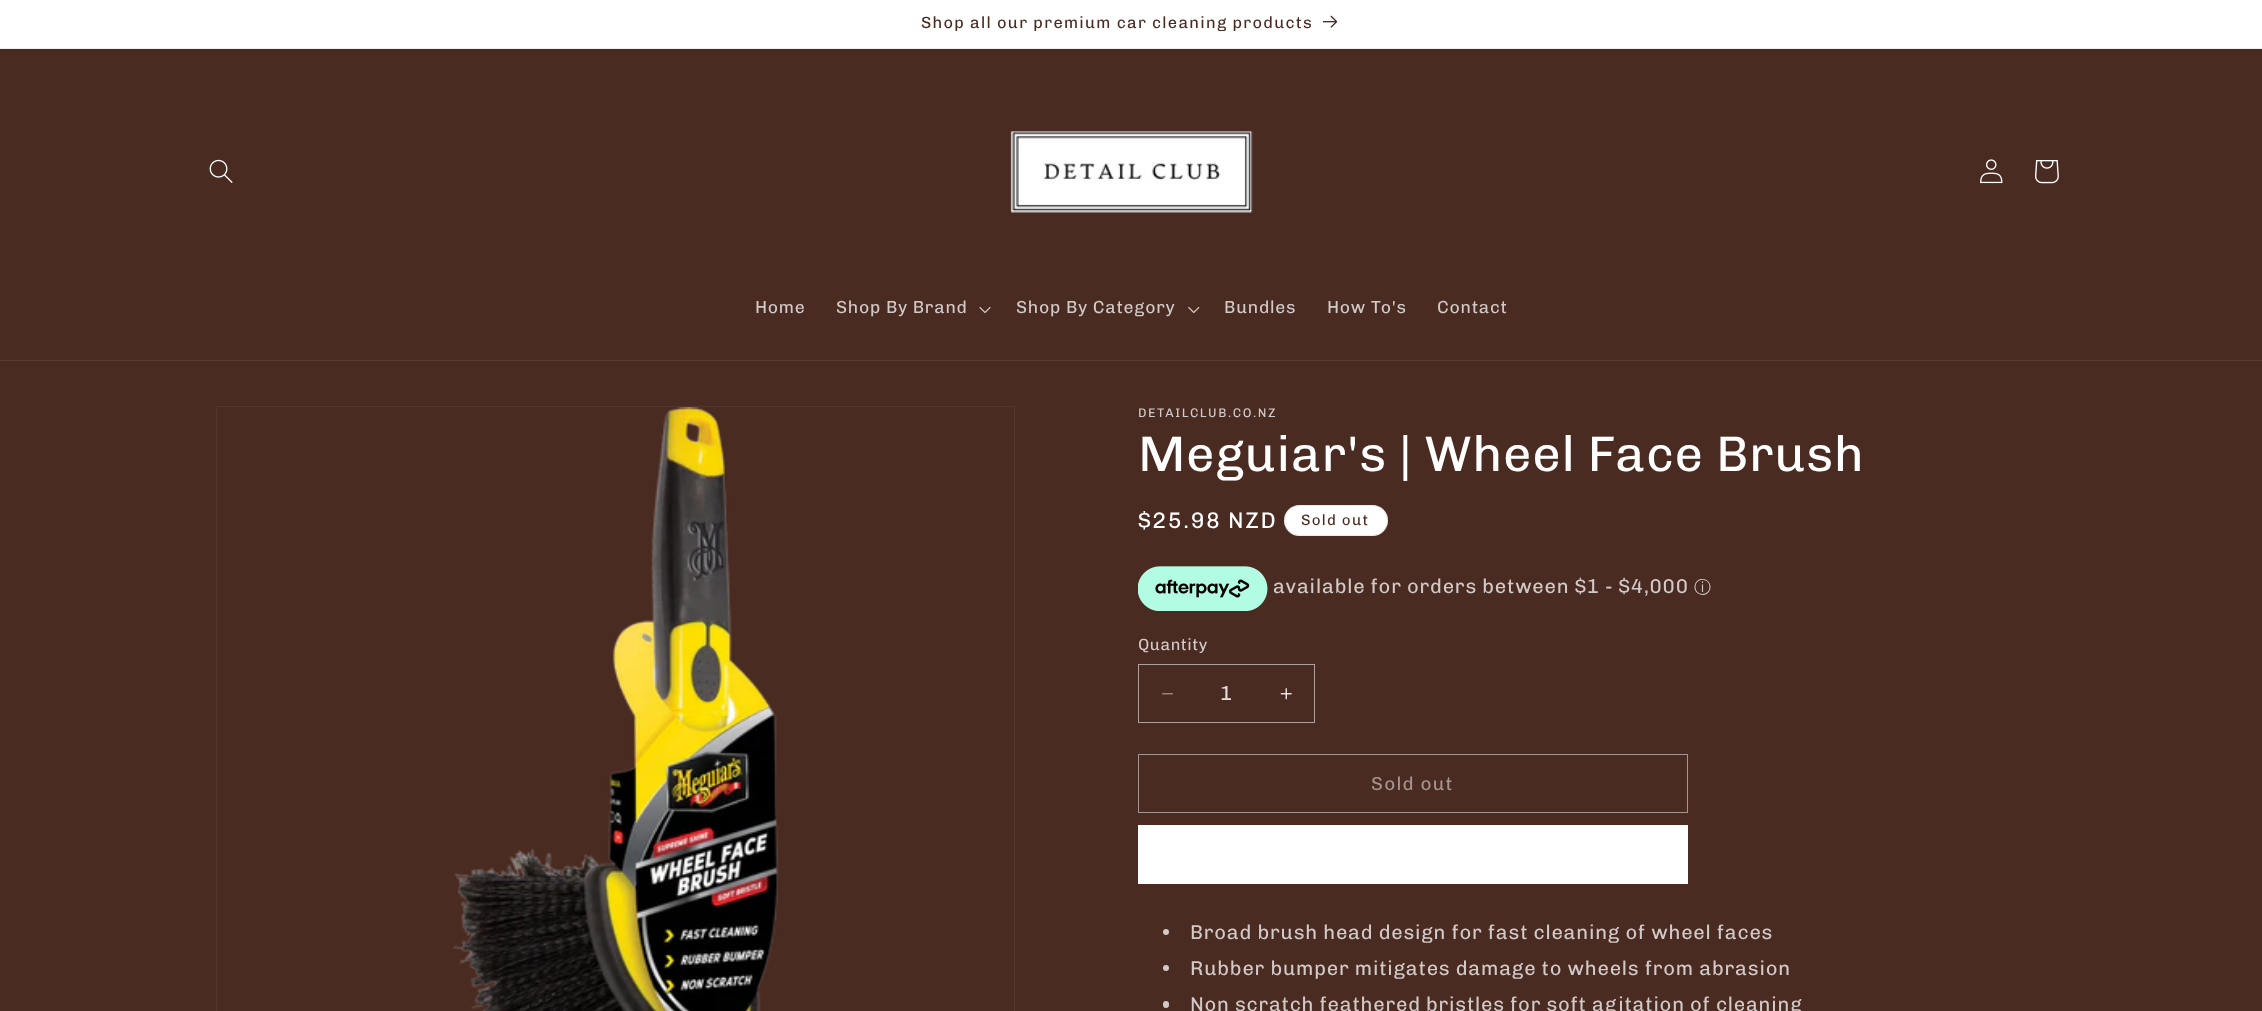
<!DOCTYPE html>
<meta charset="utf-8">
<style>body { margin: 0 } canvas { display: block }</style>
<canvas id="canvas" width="2262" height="1011"></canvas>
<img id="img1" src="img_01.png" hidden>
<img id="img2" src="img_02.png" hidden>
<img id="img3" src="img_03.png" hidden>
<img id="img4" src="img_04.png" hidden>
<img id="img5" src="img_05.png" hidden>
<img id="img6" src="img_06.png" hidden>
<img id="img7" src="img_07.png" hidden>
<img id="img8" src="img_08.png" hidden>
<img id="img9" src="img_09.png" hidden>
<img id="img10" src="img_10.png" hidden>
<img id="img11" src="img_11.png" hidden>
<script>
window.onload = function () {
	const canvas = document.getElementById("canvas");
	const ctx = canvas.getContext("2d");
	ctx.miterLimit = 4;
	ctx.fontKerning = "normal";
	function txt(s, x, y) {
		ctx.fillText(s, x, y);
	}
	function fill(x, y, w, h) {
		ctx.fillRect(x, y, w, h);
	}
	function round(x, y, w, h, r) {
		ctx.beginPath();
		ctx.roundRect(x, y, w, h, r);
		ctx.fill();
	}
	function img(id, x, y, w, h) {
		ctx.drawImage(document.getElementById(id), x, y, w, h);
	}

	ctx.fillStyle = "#4A2B22";
	fill(0, 0, 2262, 1011);
	ctx.fillStyle = "#FFFFFF";
	fill(0, 0, 2262, 48);
	ctx.fillStyle = "#F1EEED";
	fill(0, 48, 2262, 1);
	img("img1", 1323, 15, 15, 13);
	ctx.fillStyle = "#583C34";
	fill(0, 360, 2262, 1);
	img("img2", 209, 159, 24, 24);
	img("img3", 1010, 131, 243, 82);
	img("img4", 1980, 159, 23, 25);
	img("img5", 2035, 160, 24, 24);
	img("img6", 979, 307, 12, 6);
	img("img7", 1188, 306, 12, 8);
	ctx.strokeStyle = "#53362D";
	ctx.strokeRect(216.5, 406.5, 798, 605);
	img("img8", 453, 407, 326, 604);
	ctx.fillStyle = "#FFFFFF";
	round(1284, 505, 104, 31, 15.5);
	ctx.beginPath();
	ctx.roundRect(1284.5, 505.5, 103, 30, 15);
	ctx.strokeStyle = "rgba(74, 43, 34, 0.1)";
	ctx.stroke();
	img("img9", 1138, 566, 130, 45);
	img("img10", 1162, 693, 11, 2);
	img("img11", 1280, 688, 12, 12);
	ctx.strokeStyle = "#AEA09C";
	ctx.strokeRect(1138.5, 664.5, 176, 58);
	ctx.strokeStyle = "#A59591";
	ctx.strokeRect(1138.5, 754.5, 549, 58);
	fill(1138, 825, 550, 59);
	ctx.fillStyle = "#D2CAC8";
	ctx.beginPath();
	ctx.arc(1166, 932, 3, 0, Math.PI * 2);
	ctx.fill();
	ctx.beginPath();
	ctx.arc(1166, 968, 3, 0, Math.PI * 2);
	ctx.fill();
	round(1163, 1001, 6, 7, 3);
	ctx.letterSpacing = "1.25px";
	ctx.font = "16.25px Chivo";
	ctx.fillStyle = "#4A2B22";
	txt("Shop all our premium car cleaning products", 921, 28);
	ctx.letterSpacing = "0.75px";
	ctx.font = "17.5px Chivo";
	ctx.fillStyle = "#D2CAC8";
	txt("Home", 755, 313);
	txt("Shop By Brand", 836, 313);
	txt("Shop By Category", 1016, 313);
	txt("Bundles", 1224, 313);
	txt("How To's", 1327, 313);
	txt("Contact", 1437, 313);
	ctx.letterSpacing = "1.6px";
	ctx.font = "12.5px Chivo";
	txt("DETAILCLUB.CO.NZ", 1138, 417);
	ctx.letterSpacing = "0.75px";
	ctx.font = "50px Chivo";
	ctx.fillStyle = "#FFFFFF";
	txt("Meguiar's | Wheel Face Brush", 1138, 471);
	ctx.letterSpacing = "1.6px";
	ctx.font = "22.5px Chivo";
	txt("$25.98 NZD", 1138, 528);
	ctx.letterSpacing = "1.25px";
	ctx.font = "15px Chivo";
	ctx.fillStyle = "#4A2B22";
	txt("Sold out", 1301, 525);
	ctx.letterSpacing = "0.75px";
	ctx.font = "20px Chivo";
	ctx.fillStyle = "#D2CAC8";
	txt("available for orders between $1 - $4,000", 1273, 593);
	ctx.letterSpacing = "0px";
	ctx.font = "500 17px WenQuanYi Zen Hei";
	txt("ⓘ", 1694, 593);
	ctx.letterSpacing = "0.5px";
	ctx.font = "16.25px Chivo";
	txt("Quantity", 1138, 650);
	ctx.letterSpacing = "0px";
	ctx.font = "20px Chivo";
	ctx.fillStyle = "#E4DFDE";
	txt("1", 1220, 700);
	ctx.letterSpacing = "1.25px";
	ctx.font = "18.75px Chivo";
	ctx.fillStyle = "#A59591";
	txt("Sold out", 1371, 790);
	ctx.letterSpacing = "0.75px";
	ctx.font = "20px Chivo";
	ctx.fillStyle = "#D2CAC8";
	txt("Broad brush head design for fast cleaning of wheel faces", 1190, 939);
	txt("Rubber bumper mitigates damage to wheels from abrasion", 1190, 975);
	txt("Non scratch feathered bristles for soft agitation of cleaning", 1190, 1011);
};
</script>
